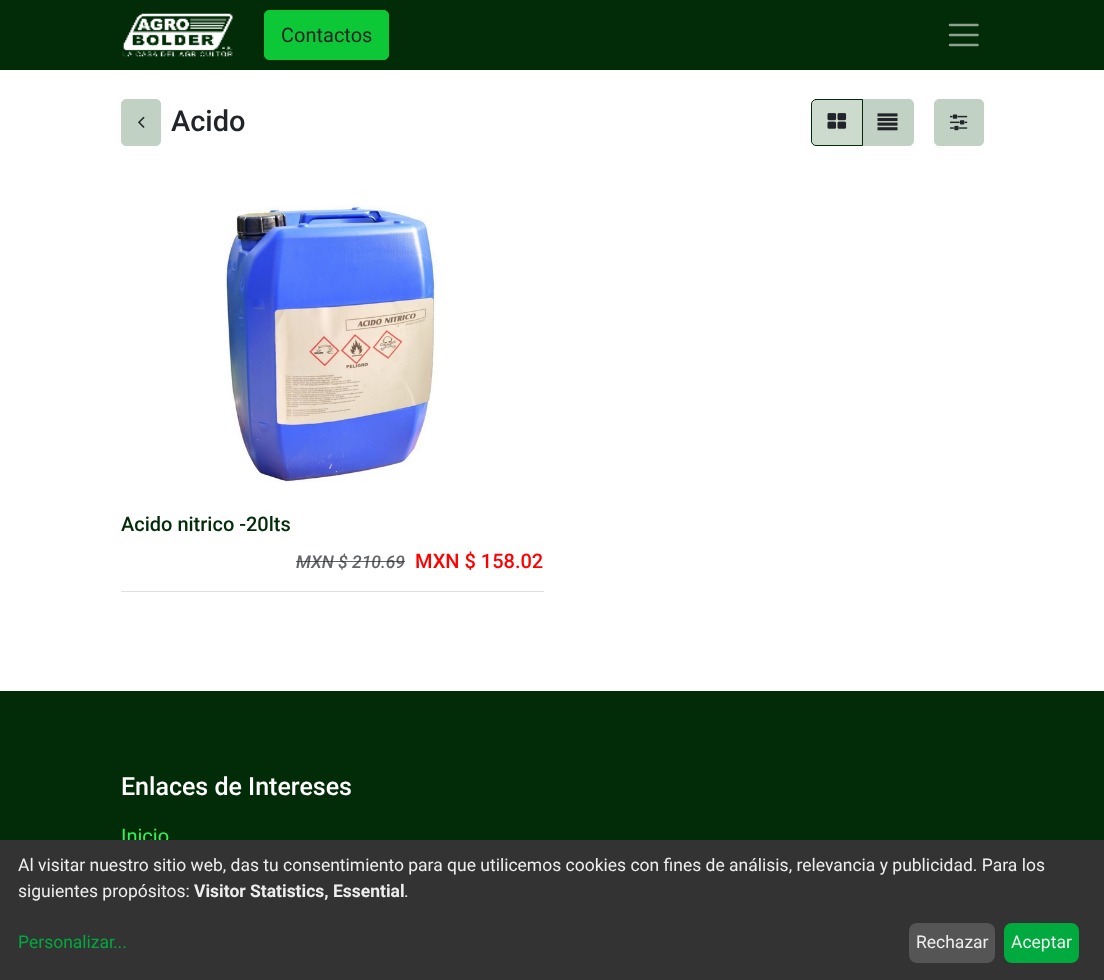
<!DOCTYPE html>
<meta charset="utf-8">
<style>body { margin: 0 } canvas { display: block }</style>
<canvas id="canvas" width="1104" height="980"></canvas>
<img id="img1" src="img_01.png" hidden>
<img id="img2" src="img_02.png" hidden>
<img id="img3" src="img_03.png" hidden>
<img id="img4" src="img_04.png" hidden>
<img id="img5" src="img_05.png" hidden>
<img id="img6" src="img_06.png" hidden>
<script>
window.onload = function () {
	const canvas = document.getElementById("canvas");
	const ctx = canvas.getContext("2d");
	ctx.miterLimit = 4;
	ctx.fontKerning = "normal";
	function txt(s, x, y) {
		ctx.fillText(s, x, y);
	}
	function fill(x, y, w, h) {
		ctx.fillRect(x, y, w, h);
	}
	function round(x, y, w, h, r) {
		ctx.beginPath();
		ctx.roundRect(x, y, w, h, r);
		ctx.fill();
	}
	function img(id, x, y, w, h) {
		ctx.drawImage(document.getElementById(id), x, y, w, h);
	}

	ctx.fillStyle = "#FFFFFF";
	fill(0, 0, 1104, 980);
	ctx.fillStyle = "#012C07";
	fill(0, 0, 1104, 70);
	img("img1", 122, 13, 111, 44);
	ctx.fillStyle = "#0DC836";
	ctx.beginPath();
	ctx.roundRect(264.5, 10.5, 124, 49, 4.5);
	ctx.fill();
	ctx.strokeStyle = "#0DC836";
	ctx.stroke();
	ctx.beginPath();
	ctx.moveTo(950, 25);
	ctx.lineTo(977.5, 25);
	ctx.moveTo(950, 35);
	ctx.lineTo(977.5, 35);
	ctx.moveTo(950, 45);
	ctx.lineTo(977.5, 45);
	ctx.strokeStyle = "#8DA08F";
	ctx.lineWidth = 2.5;
	ctx.lineCap = "round";
	ctx.stroke();
	ctx.fillStyle = "#C1D1C3";
	ctx.beginPath();
	ctx.roundRect(121.5, 99.5, 39, 46, 4.5);
	ctx.fill();
	ctx.strokeStyle = "#C1D1C3";
	ctx.lineWidth = 1;
	ctx.stroke();
	img("img2", 138, 116, 7, 12);
	ctx.beginPath();
	ctx.roundRect(861.5, 99.5, 52, 46, [0, 4.5, 4.5, 0]);
	ctx.fill();
	ctx.stroke();
	ctx.fillStyle = "#CDDBCF";
	ctx.beginPath();
	ctx.roundRect(811.5, 99.5, 51, 46, [4.5, 0, 0, 4.5]);
	ctx.fill();
	ctx.strokeStyle = "#012C07";
	ctx.stroke();
	img("img3", 827, 113, 20, 16);
	img("img4", 877, 113, 21, 18);
	ctx.fillStyle = "#C1D1C3";
	ctx.beginPath();
	ctx.roundRect(934.5, 99.5, 49, 46, 4.5);
	ctx.fill();
	ctx.strokeStyle = "#C1D1C3";
	ctx.stroke();
	img("img5", 950, 114, 18, 17);
	ctx.fillStyle = "#DFDFDF";
	fill(121, 591, 423, 1);
	img("img6", 224, 204, 215, 279);
	ctx.fillStyle = "#012C07";
	fill(0, 691, 1104, 149);
	ctx.font = "20px Roboto";
	ctx.fillStyle = "#212529";
	txt("Contactos", 281, 42);
	ctx.font = "500 29px Roboto";
	txt("Acido", 171, 131);
	ctx.font = "500 20px Roboto";
	ctx.fillStyle = "#012C07";
	txt("Acido nitrico -20lts", 121, 531);
	ctx.font = "italic 500 17.5px Roboto";
	ctx.fillStyle = "#646669";
	txt("MXN $", 296, 568);
	ctx.fillStyle = "rgba(33, 37, 41, 0.7)";
	fill(296, 561, 57, 1);
	ctx.fillStyle = "#646669";
	txt("210.69", 352, 568);
	ctx.fillStyle = "rgba(33, 37, 41, 0.7)";
	fill(353, 561, 52, 1);
	ctx.font = "500 20px Roboto";
	ctx.fillStyle = "#FF0000";
	txt("MXN $ 158.02", 415, 568);
	ctx.font = "500 25px Roboto";
	ctx.fillStyle = "#FFFFFF";
	txt("Enlaces de Intereses", 121, 795);
	ctx.font = "20px Roboto";
	ctx.fillStyle = "#30F25A";
	txt("Inicio", 121, 843);
	ctx.fillStyle = "#333333";
	fill(0, 840, 1104, 140);
	ctx.font = "17.5px Roboto";
	ctx.fillStyle = "#EEEEEE";
	txt("Al visitar nuestro sitio web, das tu consentimiento para que utilicemos cookies con fines de análisis, relevancia y publicidad. Para los", 18, 871);
	txt("siguientes propósitos:", 18, 897);
	ctx.font = "bold 17.5px Roboto";
	txt("Visitor Statistics, Essential", 194, 897);
	ctx.font = "17.5px Roboto";
	txt(".", 404, 897);
	ctx.fillStyle = "#00AA3E";
	txt("Personalizar", 18, 948);
	txt("...", 113, 948);
	ctx.fillStyle = "#555555";
	round(909, 923, 86, 40, 8);
	ctx.fillStyle = "#EEEEEE";
	txt("Rechazar", 916, 948);
	ctx.fillStyle = "#00AA3E";
	round(1004, 923, 75, 40, 8);
	ctx.fillStyle = "#EEEEEE";
	txt("Aceptar", 1011, 948);
};
</script>
